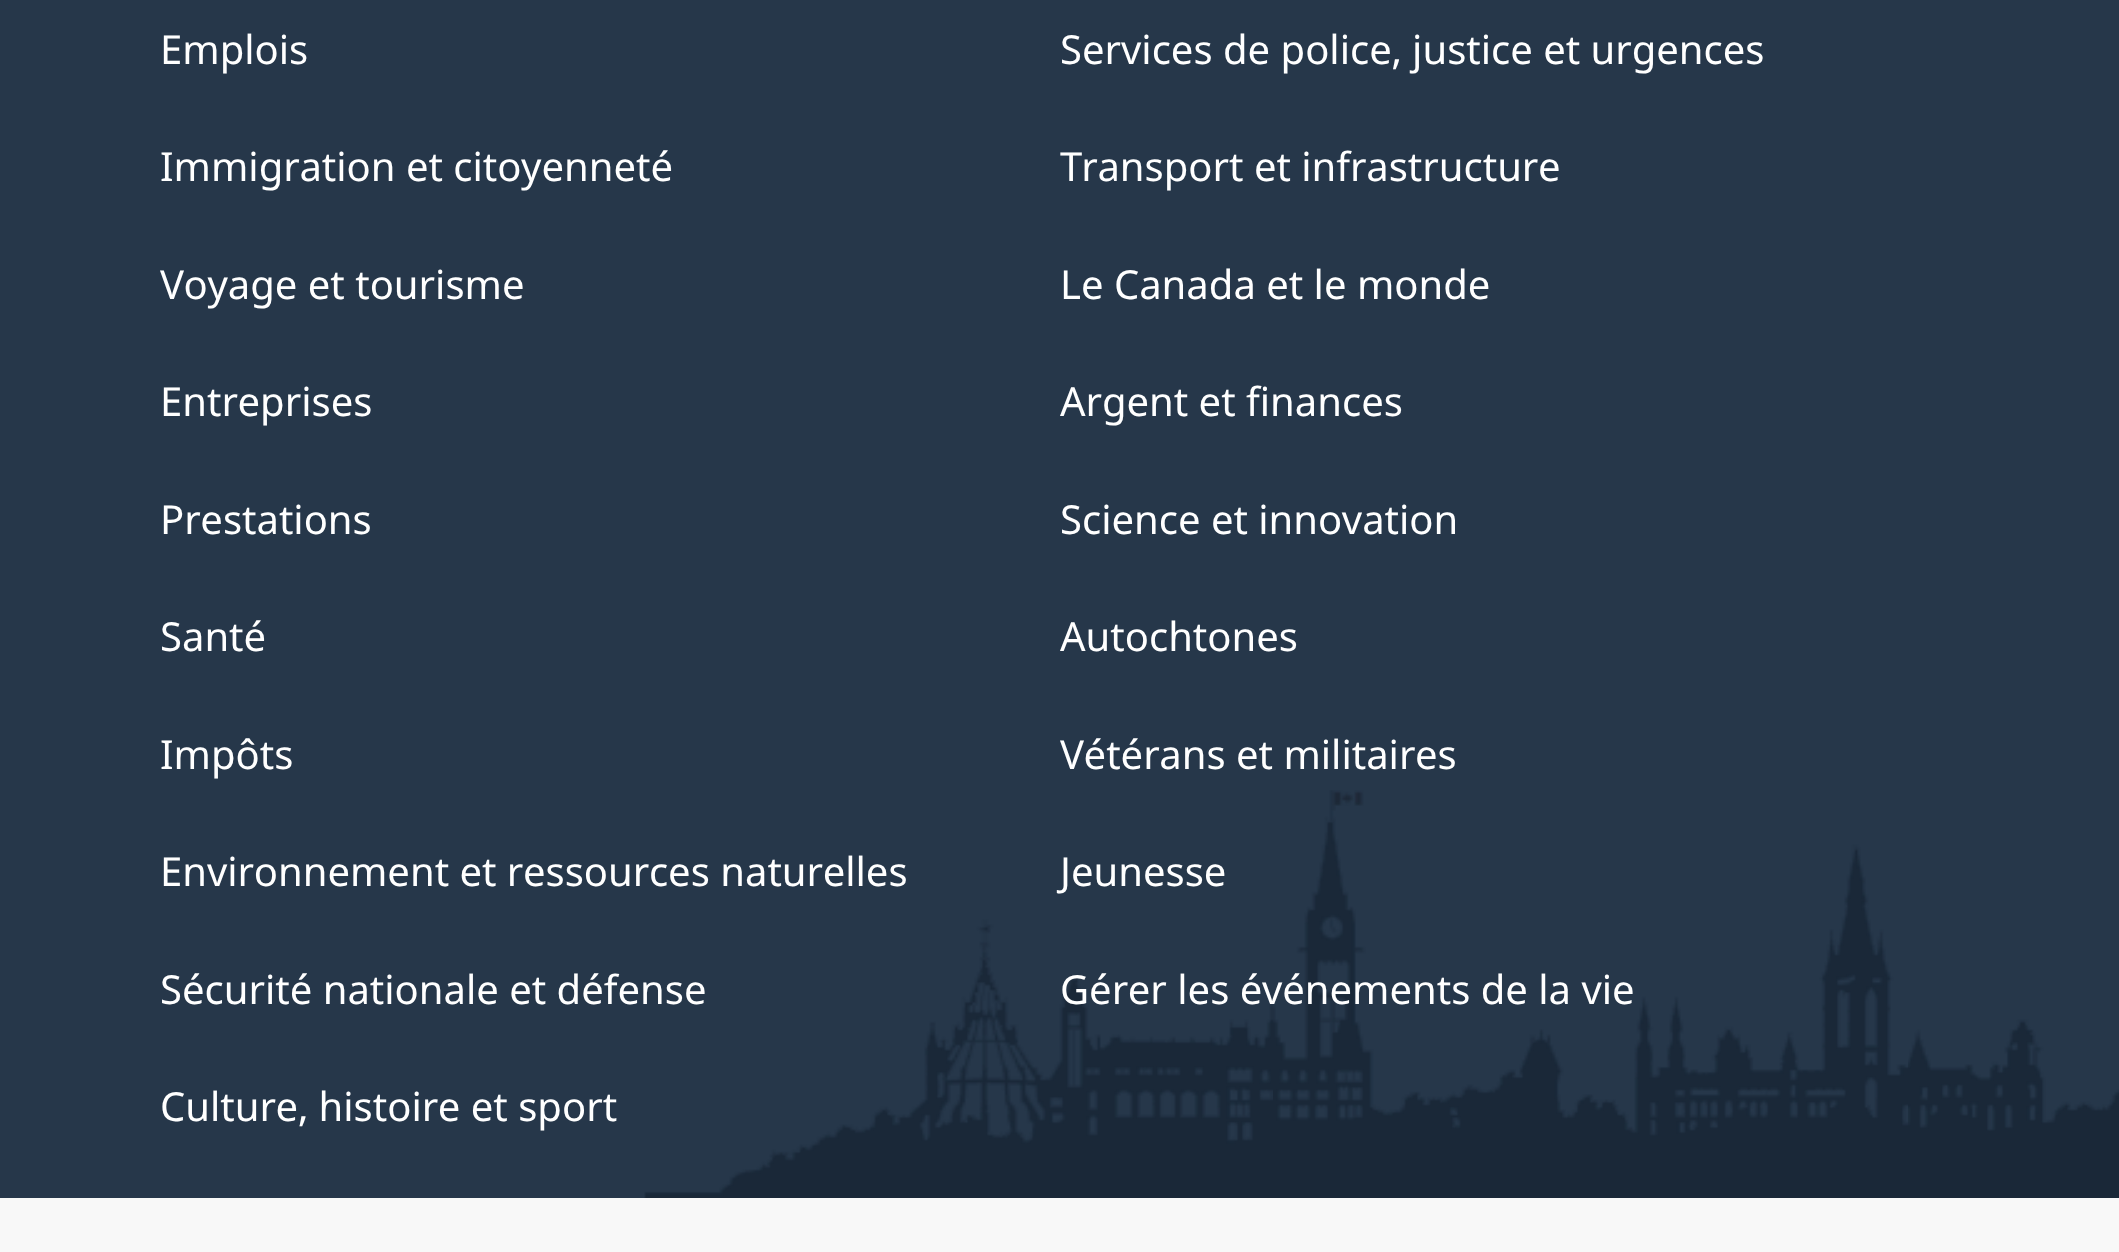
<!DOCTYPE html>
<meta charset="utf-8">
<style>body { margin: 0 } canvas { display: block }</style>
<canvas id="canvas" width="2119" height="1252"></canvas>
<img id="img1" src="img_01.png" hidden>
<script>
window.onload = function () {
	const canvas = document.getElementById("canvas");
	const ctx = canvas.getContext("2d");
	ctx.miterLimit = 4;
	ctx.fontKerning = "normal";
	function txt(s, x, y) {
		ctx.fillText(s, x, y);
	}
	function fill(x, y, w, h) {
		ctx.fillRect(x, y, w, h);
	}
	function img(id, x, y, w, h) {
		ctx.drawImage(document.getElementById(id), x, y, w, h);
	}

	ctx.fillStyle = "#26374A";
	fill(0, 0, 2119, 1252);
	img("img1", 644, 790, 1475, 408);
	ctx.fillStyle = "#F8F8F8";
	fill(0, 1198, 2119, 54);
	ctx.font = "40px Noto Sans";
	ctx.fillStyle = "#FFFFFF";
	txt("Emplois", 160, 64);
	txt("Services de police, justice et urgences", 1060, 64);
	txt("Immigration et citoyenneté", 160, 181);
	txt("Transport et infrastructure", 1060, 181);
	txt("Voyage et tourisme", 160, 299);
	txt("Le Canada et le monde", 1060, 299);
	txt("Entreprises", 160, 416);
	txt("Argent et finances", 1060, 416);
	txt("Prestations", 160, 534);
	txt("Science et innovation", 1060, 534);
	txt("Santé", 160, 651);
	txt("Autochtones", 1060, 651);
	txt("Impôts", 160, 769);
	txt("Vétérans et militaires", 1060, 769);
	txt("Environnement et ressources naturelles", 160, 886);
	txt("Jeunesse", 1060, 886);
	txt("Sécurité nationale et défense", 160, 1004);
	txt("Gérer les événements de la vie", 1060, 1004);
	txt("Culture, histoire et sport", 160, 1121);
};
</script>
